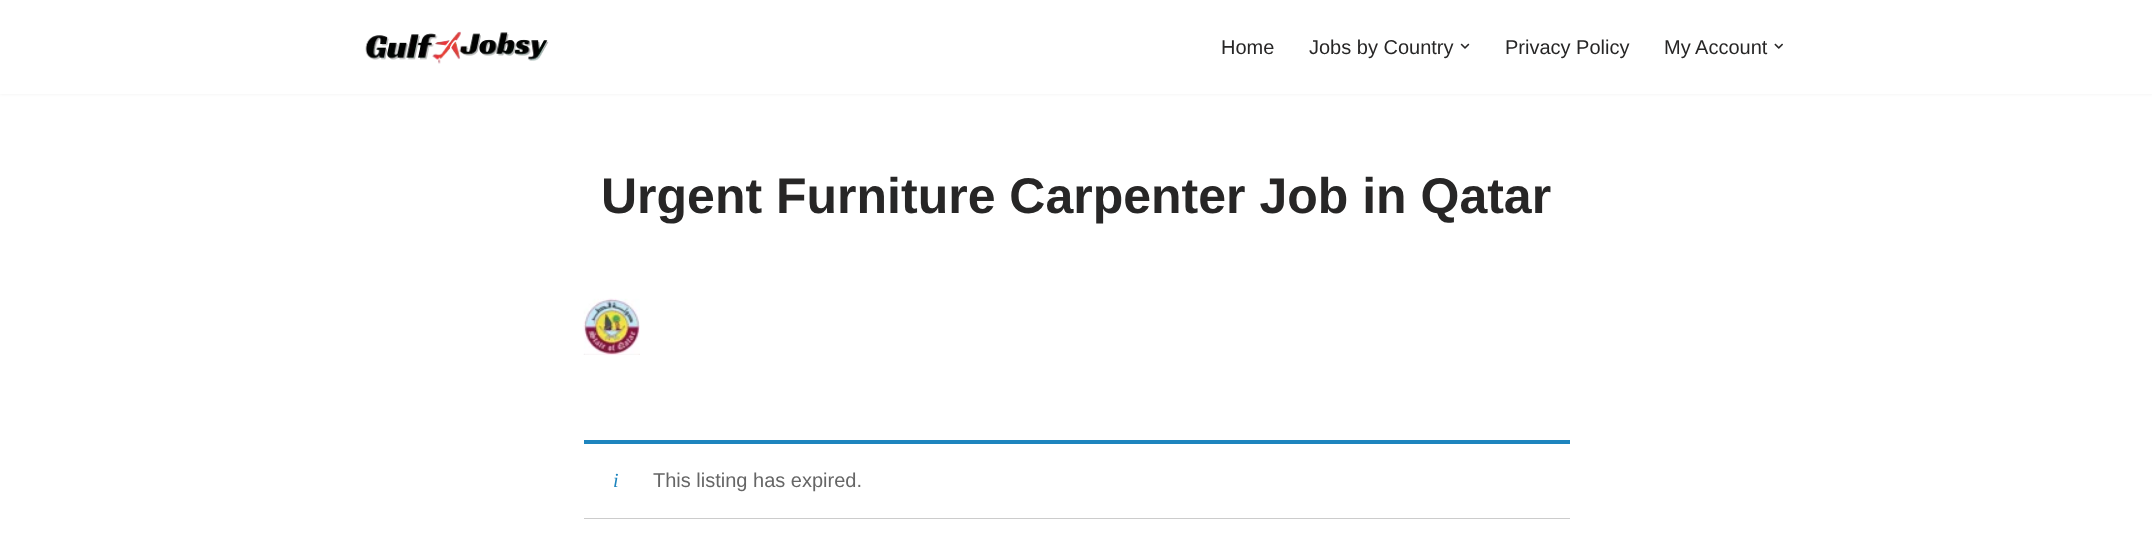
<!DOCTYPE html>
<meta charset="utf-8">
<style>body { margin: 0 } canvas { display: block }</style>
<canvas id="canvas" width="2152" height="553"></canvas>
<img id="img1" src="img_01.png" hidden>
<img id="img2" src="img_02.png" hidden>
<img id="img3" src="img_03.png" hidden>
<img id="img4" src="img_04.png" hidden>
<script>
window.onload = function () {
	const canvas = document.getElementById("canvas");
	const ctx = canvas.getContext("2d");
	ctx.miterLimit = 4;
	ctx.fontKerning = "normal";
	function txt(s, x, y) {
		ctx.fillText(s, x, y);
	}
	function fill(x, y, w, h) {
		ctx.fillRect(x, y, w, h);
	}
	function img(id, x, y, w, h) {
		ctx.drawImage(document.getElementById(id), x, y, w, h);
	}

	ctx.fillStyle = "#FFFFFF";
	fill(0, 0, 2152, 553);
	ctx.fillStyle = "rgba(0, 0, 0, 0.1)";
	ctx.filter = "blur(2px)";
	ctx.beginPath();
	ctx.rect(0, -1, 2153, 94);
	ctx.fill();
	ctx.filter = "none";
	ctx.fillStyle = "#FFFFFF";
	fill(0, 0, 2152, 94);
	img("img1", 365, 31, 184, 33);
	img("img2", 1460, 43, 10, 6);
	img("img3", 1774, 43, 9, 6);
	img("img4", 583, 298, 57, 57);
	ctx.fillStyle = "rgba(0, 0, 0, 0.2)";
	ctx.filter = "blur(0.5px)";
	ctx.beginPath();
	ctx.rect(584, 441, 986, 78);
	ctx.fill();
	ctx.filter = "none";
	ctx.fillStyle = "#FFFFFF";
	fill(584, 444, 986, 74);
	ctx.fillStyle = "#1E85BE";
	fill(584, 440, 986, 4);
	ctx.font = "20px Liberation Sans";
	ctx.fillStyle = "#272626";
	txt("Home", 1221, 54);
	txt("Jobs by Country", 1309, 54);
	txt("Privacy Policy", 1505, 54);
	txt("My Account", 1664, 54);
	ctx.font = "bold 50px Liberation Sans";
	txt("Urgent Furniture Carpenter Job in Qatar", 601, 213);
	ctx.font = "italic 20px Liberation Serif";
	ctx.fillStyle = "#1E85BE";
	txt("i", 613, 487);
	ctx.font = "20px Liberation Sans";
	ctx.fillStyle = "#666666";
	txt("This listing has expired.", 653, 487);
};
</script>
